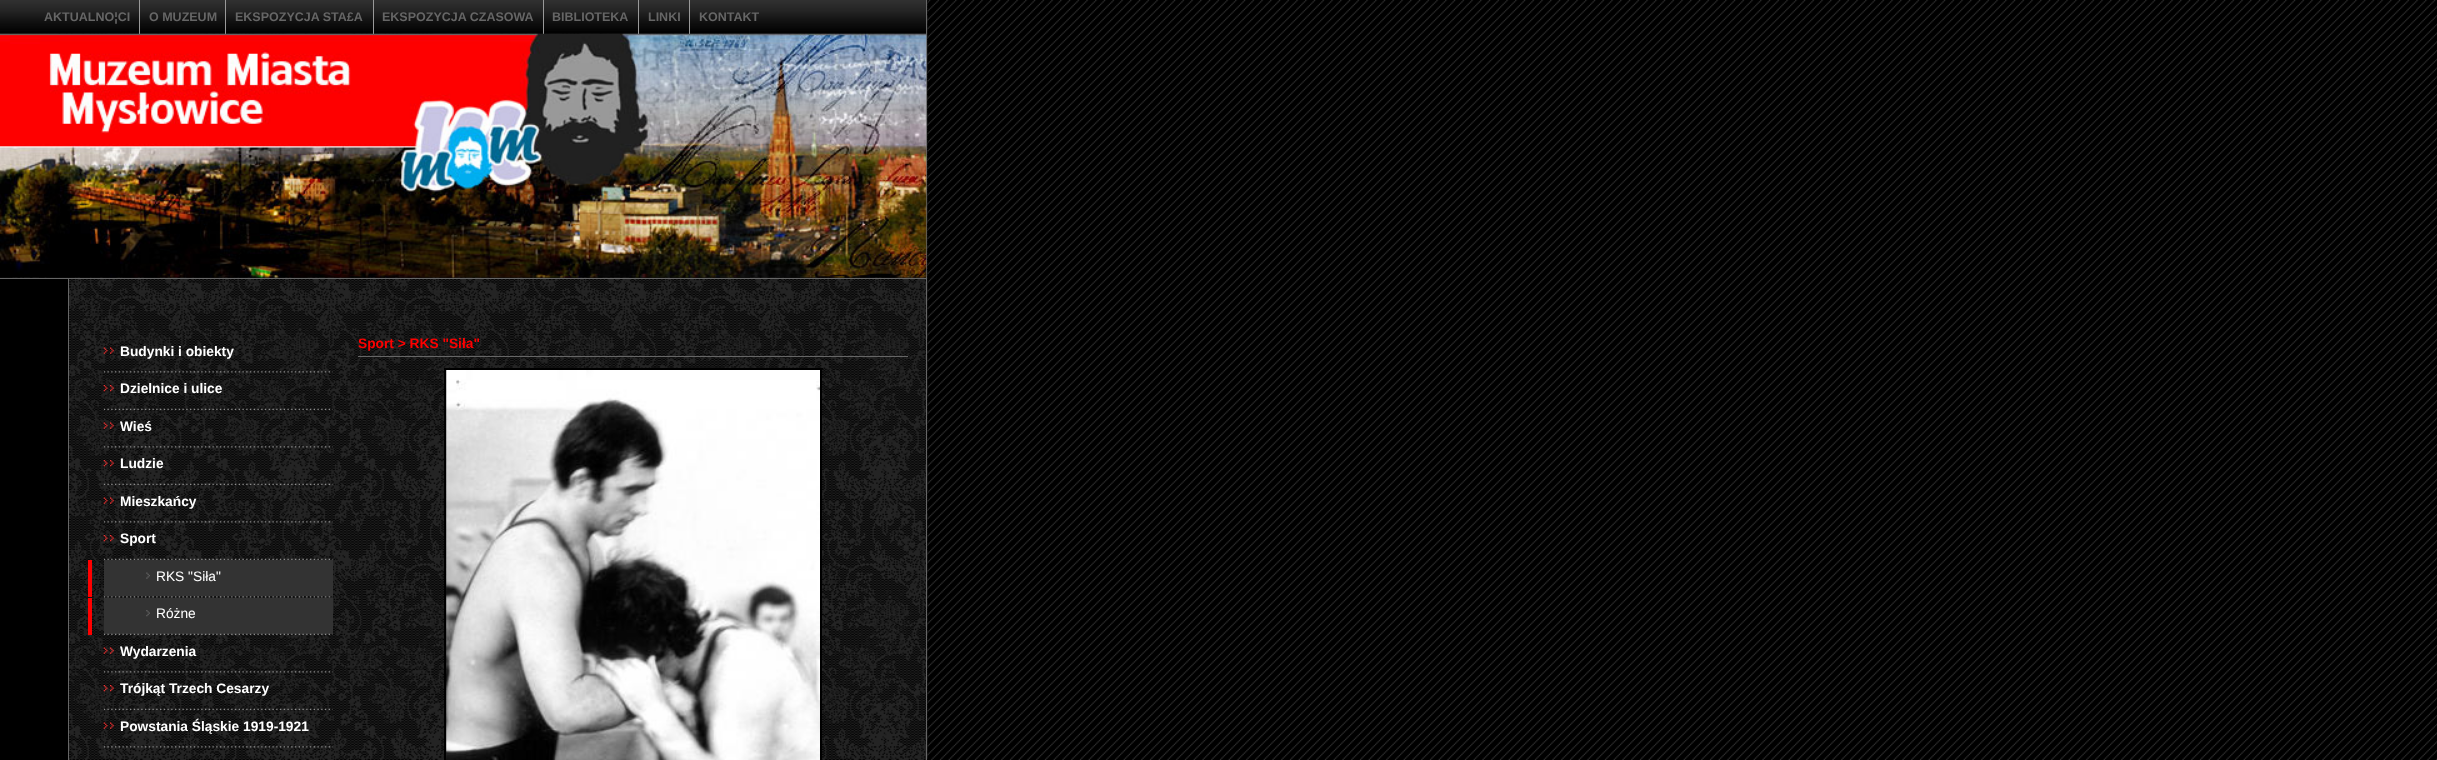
<!DOCTYPE html>
<meta charset="utf-8">
<style>body { margin: 0 } canvas { display: block }</style>
<canvas id="canvas" width="2437" height="760"></canvas>
<img id="img1" src="img_01.png" hidden>
<img id="img2" src="img_02.png" hidden>
<img id="img3" src="img_03.png" hidden>
<img id="img4" src="img_04.png" hidden>
<img id="img5" src="img_05.png" hidden>
<img id="img6" src="img_06.png" hidden>
<img id="img7" src="img_07.png" hidden>
<img id="img8" src="img_08.png" hidden>
<img id="img9" src="img_09.png" hidden>
<img id="img10" src="img_10.png" hidden>
<img id="img11" src="img_11.png" hidden>
<img id="img12" src="img_12.png" hidden>
<img id="img13" src="img_13.png" hidden>
<img id="img14" src="img_14.png" hidden>
<img id="img15" src="img_15.png" hidden>
<img id="img16" src="img_16.png" hidden>
<img id="img17" src="img_17.png" hidden>
<img id="img18" src="img_18.png" hidden>
<img id="img19" src="img_19.png" hidden>
<img id="img20" src="img_20.png" hidden>
<img id="img21" src="img_21.png" hidden>
<img id="img22" src="img_22.png" hidden>
<img id="img23" src="img_23.png" hidden>
<img id="img24" src="img_24.png" hidden>
<img id="img25" src="img_25.png" hidden>
<img id="img26" src="img_26.png" hidden>
<img id="img27" src="img_27.png" hidden>
<img id="img28" src="img_28.png" hidden>
<img id="img29" src="img_29.png" hidden>
<img id="img30" src="img_30.png" hidden>
<img id="img31" src="img_31.png" hidden>
<img id="img32" src="img_32.png" hidden>
<img id="img33" src="img_33.png" hidden>
<img id="img34" src="img_34.png" hidden>
<img id="img35" src="img_35.png" hidden>
<img id="img36" src="img_36.png" hidden>
<script>
window.onload = function () {
	const canvas = document.getElementById("canvas");
	const ctx = canvas.getContext("2d");
	ctx.miterLimit = 4;
	ctx.fontKerning = "normal";
	function txt(s, x, y) {
		ctx.fillText(s, x, y);
	}
	function fill(x, y, w, h) {
		ctx.fillRect(x, y, w, h);
	}
	function img(id, x, y, w, h) {
		ctx.drawImage(document.getElementById(id), x, y, w, h);
	}

	ctx.fillStyle = "#FFFFFF";
	fill(0, 0, 2437, 760);
	img("img1", 927, 0, 1510, 760);
	img("img2", 0, 0, 928, 760);
	img("img3", 0, 0, 926, 34);
	ctx.fillStyle = "#999999";
	fill(139, 0, 1, 34);
	fill(225, 0, 1, 34);
	fill(373, 0, 1, 34);
	fill(543, 0, 1, 34);
	fill(638, 0, 1, 34);
	fill(689, 0, 1, 34);
	ctx.fillStyle = "#666666";
	fill(926, 0, 1, 760);
	img("img4", 0, 33, 927, 245);
	fill(0, 278, 926, 1);
	ctx.fillStyle = "#000000";
	fill(0, 279, 68, 481);
	ctx.fillStyle = "#666666";
	fill(68, 279, 1, 481);
	fill(358, 356, 550, 1);
	ctx.fillStyle = "#000000";
	fill(444, 368, 379, 1);
	fill(444, 369, 1, 391);
	ctx.strokeStyle = "#000000";
	ctx.strokeRect(445.5, 369.5, 375, 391);
	img("img5", 446, 370, 374, 390);
	fill(821, 369, 1, 391);
	img("img6", 103, 347, 5, 7);
	img("img7", 110, 347, 4, 7);
	img("img8", 103, 371, 230, 2);
	img("img9", 103, 385, 5, 7);
	img("img10", 110, 385, 4, 7);
	img("img11", 103, 408, 230, 2);
	img("img12", 103, 422, 5, 7);
	img("img13", 110, 422, 4, 7);
	img("img14", 103, 446, 230, 2);
	img("img15", 103, 460, 5, 7);
	img("img16", 110, 460, 4, 7);
	img("img17", 103, 483, 230, 2);
	img("img18", 103, 497, 5, 7);
	img("img19", 110, 497, 4, 7);
	img("img20", 103, 521, 230, 2);
	img("img21", 103, 535, 5, 7);
	img("img22", 110, 535, 4, 7);
	img("img23", 103, 558, 230, 2);
	ctx.fillStyle = "#FF0000";
	fill(88, 560, 4, 37);
	ctx.fillStyle = "#333333";
	fill(104, 560, 229, 8);
	fill(104, 568, 229, 28);
	img("img24", 146, 572, 4, 7);
	img("img25", 103, 596, 230, 2);
	ctx.fillStyle = "#FF0000";
	fill(88, 598, 4, 37);
	ctx.fillStyle = "#333333";
	fill(104, 598, 229, 7);
	fill(104, 605, 229, 29);
	img("img26", 146, 610, 4, 7);
	img("img27", 103, 633, 230, 2);
	img("img28", 103, 647, 5, 7);
	img("img29", 110, 647, 4, 7);
	img("img30", 103, 671, 230, 2);
	img("img31", 103, 685, 5, 7);
	img("img32", 110, 685, 4, 7);
	img("img33", 103, 708, 230, 2);
	img("img34", 103, 722, 5, 7);
	img("img35", 110, 722, 4, 7);
	img("img36", 103, 746, 230, 2);
	ctx.font = "bold 12.5px Liberation Sans";
	ctx.fillStyle = "#666666";
	txt("AKTUALNO¦CI", 44, 21);
	txt("O MUZEUM", 149, 21);
	txt("EKSPOZYCJA STA£A", 235, 21);
	txt("EKSPOZYCJA CZASOWA", 382, 21);
	txt("BIBLIOTEKA", 552, 21);
	txt("LINKI", 648, 21);
	txt("KONTAKT", 699, 21);
	ctx.font = "bold 13.75px Liberation Sans";
	ctx.fillStyle = "#FF0000";
	txt("Sport > RKS \"Siła\"", 358, 348);
	ctx.fillStyle = "#FFFFFF";
	txt("Budynki i obiekty", 120, 356);
	txt("Dzielnice i ulice", 120, 393);
	txt("Wieś", 120, 431);
	txt("Ludzie", 120, 468);
	txt("Mieszkańcy", 120, 506);
	txt("Sport", 120, 543);
	ctx.font = "13.75px Liberation Sans";
	txt("RKS \"Siła\"", 156, 581);
	txt("Różne", 156, 618);
	ctx.font = "bold 13.75px Liberation Sans";
	txt("Wydarzenia", 120, 656);
	txt("Trójkąt Trzech Cesarzy", 120, 693);
	txt("Powstania Śląskie 1919-1921", 120, 731);
};
</script>
